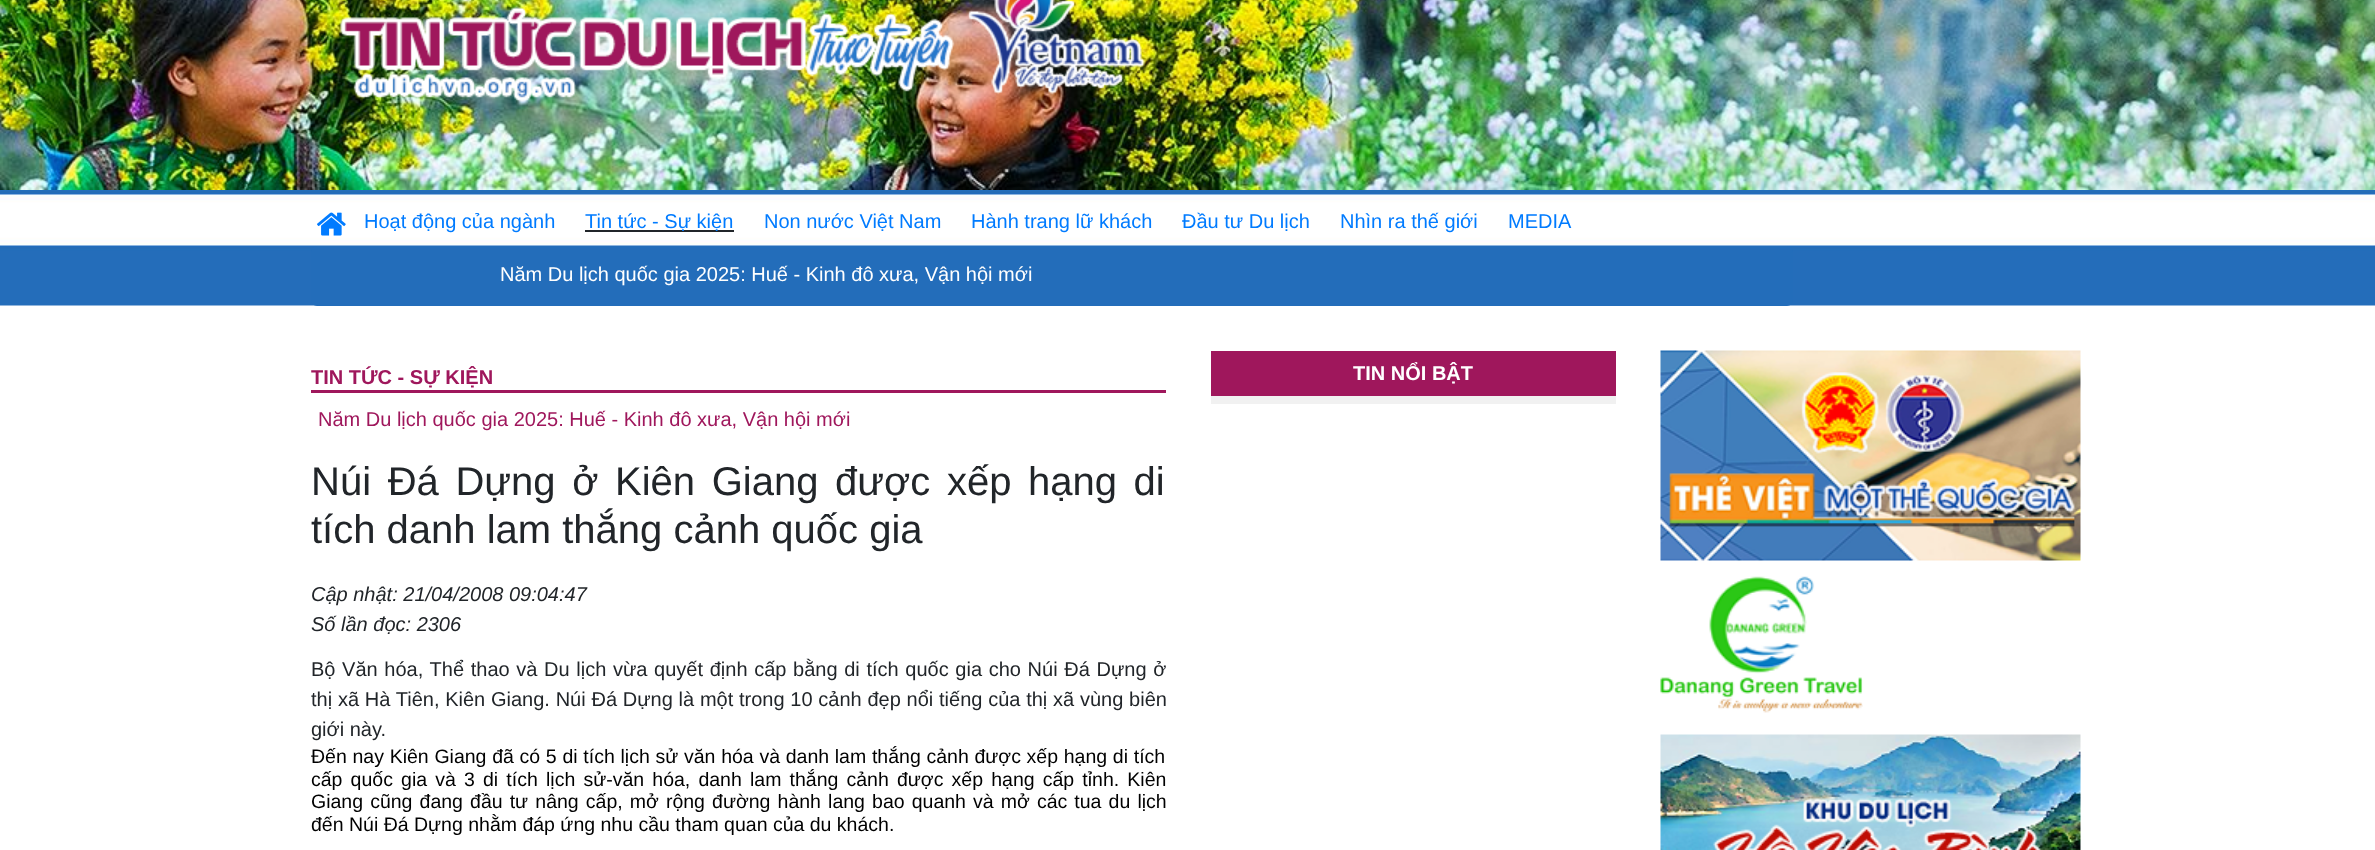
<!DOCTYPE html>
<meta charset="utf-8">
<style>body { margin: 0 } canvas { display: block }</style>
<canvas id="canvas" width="2375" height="850"></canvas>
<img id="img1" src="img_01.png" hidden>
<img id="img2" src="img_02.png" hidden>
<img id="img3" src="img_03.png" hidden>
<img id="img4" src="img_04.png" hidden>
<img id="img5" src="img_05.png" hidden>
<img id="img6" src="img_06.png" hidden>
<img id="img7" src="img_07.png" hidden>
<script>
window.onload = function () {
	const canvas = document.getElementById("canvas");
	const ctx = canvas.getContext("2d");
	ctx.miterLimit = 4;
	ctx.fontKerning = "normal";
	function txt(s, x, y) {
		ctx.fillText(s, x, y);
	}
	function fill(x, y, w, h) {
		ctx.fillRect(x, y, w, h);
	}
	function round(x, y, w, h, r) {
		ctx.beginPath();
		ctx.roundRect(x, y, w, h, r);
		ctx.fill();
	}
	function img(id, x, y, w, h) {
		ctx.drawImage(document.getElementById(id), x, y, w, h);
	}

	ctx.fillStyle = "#FFFFFF";
	fill(0, 0, 2375, 850);
	img("img1", 0, 0, 2375, 190);
	img("img2", 340, 0, 805, 102);
	img("img3", 0, 190, 2375, 116);
	img("img4", 317, 212, 29, 24);
	ctx.fillStyle = "#212529";
	fill(585, 230, 149, 2);
	ctx.fillStyle = "#236DBA";
	round(311, 246, 1482, 60, 6);
	ctx.fillStyle = "#9F175C";
	fill(311, 390, 855, 3);
	fill(1211, 351, 405, 45);
	ctx.fillStyle = "#F1F1F1";
	fill(1211, 396, 405, 8);
	img("img5", 1660, 350, 421, 211);
	img("img6", 1660, 576, 203, 137);
	img("img7", 1660, 734, 421, 116);
	ctx.font = "20px Liberation Sans";
	ctx.fillStyle = "#007BFF";
	txt("Hoạt động của ngành", 364, 228);
	txt("Tin tức - Sự kiện", 585, 228);
	ctx.fillStyle = "#FFFFFF";
	txt("Năm Du lịch quốc gia 2025: Huế - Kinh đô xưa, Vận hội mới", 500, 281);
	ctx.fillStyle = "#007BFF";
	txt("Ðầu tư Du lịch", 1182, 228);
	txt("Nhìn ra thế giới", 1340, 228);
	txt("Non nước Việt Nam", 764, 228);
	txt("Hành trang lữ khách", 971, 228);
	txt("MEDIA", 1508, 228);
	ctx.font = "bold 20px Liberation Sans";
	ctx.fillStyle = "#9F175C";
	txt("TIN TỨC - SỰ KIỆN", 311, 384);
	ctx.font = "20px Liberation Sans";
	txt("Năm Du lịch quốc gia 2025: Huế - Kinh đô xưa, Vận hội mới", 318, 426);
	ctx.wordSpacing = "5.5px";
	ctx.font = "40px Liberation Sans";
	ctx.fillStyle = "#212529";
	txt("Núi Ðá Dựng ở Kiên Giang được xếp hạng di", 311, 495);
	ctx.wordSpacing = "0px";
	txt("tích danh lam thắng cảnh quốc gia", 311, 543);
	ctx.font = "italic 20px Liberation Sans";
	txt("Cập nhật: 21/04/2008 09:04:47", 311, 601);
	txt("Số lần đọc: 2306", 311, 631);
	ctx.wordSpacing = "1.1px";
	ctx.font = "20px Liberation Sans";
	txt("Bộ Văn hóa, Thể thao và Du lịch vừa quyết định cấp bằng di tích quốc gia cho Núi Ðá Dựng ở", 311, 676);
	ctx.wordSpacing = "0.2px";
	txt("thị xã Hà Tiên, Kiên Giang. Núi Ðá Dựng là một trong 10 cảnh đẹp nổi tiếng của thị xã vùng biên", 311, 706);
	ctx.wordSpacing = "0px";
	txt("giới này.", 311, 736);
	ctx.wordSpacing = "0.3px";
	ctx.font = "19.5px Liberation Sans";
	ctx.fillStyle = "#000000";
	txt("Ðến nay Kiên Giang đã có 5 di tích lịch sử văn hóa và danh lam thắng cảnh được xếp hạng di tích", 311, 763);
	ctx.wordSpacing = "2.75px";
	txt("cấp quốc gia và 3 di tích lịch sử-văn hóa, danh lam thắng cảnh được xếp hạng cấp tỉnh. Kiên", 311, 786);
	ctx.wordSpacing = "1.7px";
	txt("Giang cũng đang đầu tư nâng cấp, mở rộng đường hành lang bao quanh và mở các tua du lịch", 311, 808);
	ctx.wordSpacing = "0px";
	txt("đến Núi Ðá Dựng nhằm đáp ứng nhu cầu tham quan của du khách.", 311, 831);
	ctx.font = "bold 20px Liberation Sans";
	ctx.fillStyle = "#FFFFFF";
	txt("TIN NỔI BẬT", 1353, 380);
};
</script>
